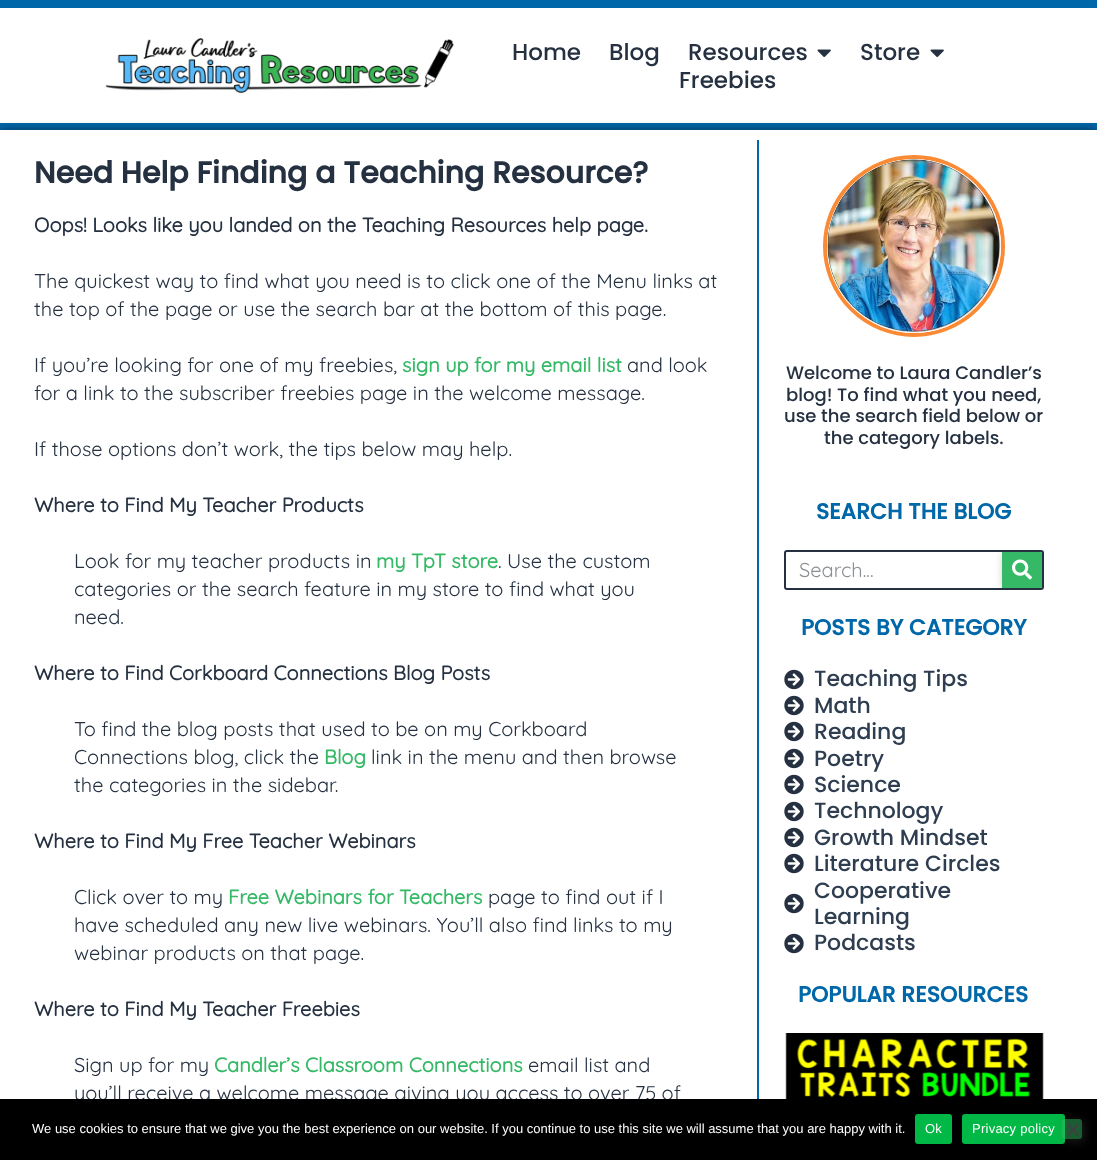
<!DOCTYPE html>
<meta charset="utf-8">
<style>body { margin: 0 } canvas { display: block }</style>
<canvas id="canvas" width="1097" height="1160"></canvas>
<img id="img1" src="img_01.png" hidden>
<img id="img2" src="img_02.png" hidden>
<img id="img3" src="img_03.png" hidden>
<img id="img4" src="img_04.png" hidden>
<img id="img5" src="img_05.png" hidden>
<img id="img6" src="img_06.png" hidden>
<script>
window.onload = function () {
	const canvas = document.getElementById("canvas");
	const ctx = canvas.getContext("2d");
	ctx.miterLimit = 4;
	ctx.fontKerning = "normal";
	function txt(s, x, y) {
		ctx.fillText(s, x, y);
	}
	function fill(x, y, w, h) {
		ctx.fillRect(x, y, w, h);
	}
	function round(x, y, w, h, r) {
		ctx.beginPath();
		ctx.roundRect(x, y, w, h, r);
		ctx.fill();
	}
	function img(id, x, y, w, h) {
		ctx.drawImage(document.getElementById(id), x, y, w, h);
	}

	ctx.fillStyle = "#FFFFFF";
	fill(0, 0, 1097, 1160);
	ctx.fillStyle = "#0067A8";
	fill(0, 0, 1097, 8);
	fill(0, 123, 1097, 7);
	img("img1", 105, 38, 349, 55);
	img("img2", 817, 49, 14, 8);
	img("img2", 930, 49, 14, 8);
	ctx.save();
	ctx.beginPath();
	ctx.rect(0, 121, 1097, 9);
	ctx.clip();
	ctx.fillStyle = "rgba(0, 0, 0, 0.5)";
	ctx.filter = "blur(5px)";
	ctx.beginPath();
	ctx.rect(0, 130, 1097, 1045);
	ctx.fill();
	ctx.filter = "none";
	ctx.restore();
	fill(757, 140, 2, 959);
	ctx.beginPath();
	ctx.arc(914, 246, 89, 0, Math.PI * 2);
	ctx.strokeStyle = "#FB8A34";
	ctx.lineWidth = 4;
	ctx.stroke();
	img("img3", 827, 159, 174, 174);
	ctx.beginPath();
	ctx.roundRect(785, 551, 258, 38, 2);
	ctx.strokeStyle = "#253141";
	ctx.lineWidth = 2;
	ctx.stroke();
	ctx.save();
	ctx.beginPath();
	ctx.roundRect(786, 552, 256, 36, 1);
	ctx.clip();
	ctx.fillStyle = "rgba(114, 114, 114, 0.5)";
	ctx.filter = "blur(5px)";
	ctx.beginPath();
	ctx.rect(1004, 554, 40, 36);
	ctx.fill();
	ctx.filter = "none";
	ctx.restore();
	ctx.fillStyle = "#35B966";
	ctx.beginPath();
	ctx.roundRect(1002, 552, 40, 36, [0, 1, 1, 0]);
	ctx.fill();
	img("img4", 1012, 559, 20, 21);
	img("img5", 784, 669, 20, 21);
	img("img5", 784, 695, 20, 21);
	img("img5", 784, 721, 20, 21);
	img("img5", 784, 748, 20, 21);
	img("img5", 784, 774, 20, 21);
	img("img5", 784, 801, 20, 21);
	img("img5", 784, 827, 20, 21);
	img("img5", 784, 853, 20, 21);
	img("img5", 784, 893, 20, 21);
	img("img5", 784, 933, 20, 21);
	img("img6", 785, 1033, 259, 66);
	ctx.font = "500 23px Poppins";
	ctx.fillStyle = "#253141";
	txt("Home", 512, 60);
	txt("Blog", 609, 60);
	txt("Resources", 688, 60);
	txt("Store", 860, 60);
	txt("Freebies", 679, 88);
	ctx.font = "bold 30px Poppins";
	txt("Need Help Finding a Teaching Resource?", 34, 183);
	ctx.font = "bold 20px Quicksand";
	txt("Oops! Looks like you landed on the Teaching Resources help page.", 34, 232);
	ctx.font = "20px Quicksand";
	txt("The quickest way to find what you need is to click one of the Menu links at", 34, 288);
	txt("the top of the page or use the search bar at the bottom of this page.", 34, 316);
	txt("If you’re looking for one of my freebies,", 34, 372);
	ctx.font = "bold 20px Quicksand";
	ctx.fillStyle = "#35B966";
	txt("sign up for my email list", 402, 372);
	ctx.font = "20px Quicksand";
	ctx.fillStyle = "#253141";
	txt("and look", 627, 372);
	txt("for a link to the subscriber freebies page in the welcome message.", 34, 400);
	txt("If those options don’t work, the tips below may help.", 34, 456);
	ctx.font = "bold 20px Quicksand";
	txt("Where to Find My Teacher Products", 34, 512);
	ctx.font = "20px Quicksand";
	txt("Look for my teacher products in", 74, 568);
	ctx.font = "bold 20px Quicksand";
	ctx.fillStyle = "#35B966";
	txt("my TpT store", 376, 568);
	ctx.font = "20px Quicksand";
	ctx.fillStyle = "#253141";
	txt(". Use the custom", 498, 568);
	txt("categories or the search feature in my store to find what you", 74, 596);
	txt("need.", 74, 624);
	ctx.font = "bold 20px Quicksand";
	txt("Where to Find Corkboard Connections Blog Posts", 34, 680);
	ctx.font = "20px Quicksand";
	txt("To find the blog posts that used to be on my Corkboard", 74, 736);
	txt("Connections blog, click the", 74, 764);
	ctx.font = "bold 20px Quicksand";
	ctx.fillStyle = "#35B966";
	txt("Blog", 324, 764);
	ctx.font = "20px Quicksand";
	ctx.fillStyle = "#253141";
	txt("link in the menu and then browse", 371, 764);
	txt("the categories in the sidebar.", 74, 792);
	ctx.font = "bold 20px Quicksand";
	txt("Where to Find My Free Teacher Webinars", 34, 848);
	ctx.font = "20px Quicksand";
	txt("Click over to my", 74, 904);
	ctx.font = "bold 20px Quicksand";
	ctx.fillStyle = "#35B966";
	txt("Free Webinars for Teachers", 228, 904);
	ctx.font = "20px Quicksand";
	ctx.fillStyle = "#253141";
	txt("page to find out if I", 488, 904);
	txt("have scheduled any new live webinars. You’ll also find links to my", 74, 932);
	txt("webinar products on that page.", 74, 960);
	ctx.font = "bold 20px Quicksand";
	txt("Where to Find My Teacher Freebies", 34, 1016);
	ctx.font = "20px Quicksand";
	txt("Sign up for my", 74, 1072);
	ctx.font = "bold 20px Quicksand";
	ctx.fillStyle = "#35B966";
	txt("Candler’s Classroom Connections", 214, 1072);
	ctx.font = "20px Quicksand";
	ctx.fillStyle = "#253141";
	txt("email list and", 528, 1072);
	txt("you’ll receive a welcome message giving you access to over 75 of", 74, 1100);
	ctx.font = "500 18px Poppins";
	txt("Welcome to Laura Candler’s", 786, 379);
	txt("blog! To find what you need,", 786, 401);
	txt("use the search field below or", 784, 422);
	txt("the category labels.", 824, 444);
	ctx.font = "bold 22px Poppins";
	ctx.fillStyle = "#0067A8";
	txt("SEARCH THE BLOG", 816, 519);
	ctx.font = "20px Quicksand";
	ctx.fillStyle = "#8C8F93";
	txt("Search...", 799, 577);
	ctx.font = "bold 22px Poppins";
	ctx.fillStyle = "#0067A8";
	txt("POSTS BY CATEGORY", 801, 635);
	ctx.font = "500 22px Poppins";
	ctx.fillStyle = "#2E3D50";
	txt("Teaching Tips", 814, 686);
	txt("Math", 814, 713);
	txt("Reading", 814, 739);
	txt("Poetry", 814, 766);
	txt("Science", 814, 792);
	txt("Technology", 814, 818);
	txt("Growth Mindset", 814, 845);
	txt("Literature Circles", 814, 871);
	txt("Cooperative", 814, 898);
	txt("Learning", 814, 924);
	txt("Podcasts", 814, 950);
	ctx.font = "bold 22px Poppins";
	ctx.fillStyle = "#0067A8";
	txt("POPULAR RESOURCES", 798, 1002);
	ctx.fillStyle = "#000000";
	fill(0, 1099, 1097, 61);
	ctx.font = "13px Liberation Sans";
	ctx.fillStyle = "#FFFFFF";
	txt("We use cookies to ensure that we give you the best experience on our website. If you continue to use this site we will assume that you are happy with it.", 32, 1133);
	ctx.fillStyle = "#00B845";
	round(915, 1114, 37, 30, 3);
	ctx.letterSpacing = "0.25px";
	ctx.fillStyle = "#FFFFFF";
	txt("Ok", 925, 1133);
	ctx.fillStyle = "#00B845";
	round(962, 1114, 103, 30, 3);
	ctx.fillStyle = "#FFFFFF";
	txt("Privacy policy", 972, 1133);
	ctx.save();
	ctx.beginPath();
	ctx.moveTo(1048, 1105);
	ctx.lineTo(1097, 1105);
	ctx.lineTo(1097, 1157);
	ctx.lineTo(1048, 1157);
	ctx.closePath();
	ctx.moveTo(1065, 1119);
	ctx.lineTo(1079, 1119);
	ctx.bezierCurveTo(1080.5, 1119, 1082, 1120.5, 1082, 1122);
	ctx.lineTo(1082, 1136);
	ctx.bezierCurveTo(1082, 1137.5, 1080.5, 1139, 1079, 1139);
	ctx.lineTo(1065, 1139);
	ctx.bezierCurveTo(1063.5, 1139, 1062, 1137.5, 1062, 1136);
	ctx.lineTo(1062, 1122);
	ctx.bezierCurveTo(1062, 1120.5, 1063.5, 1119, 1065, 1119);
	ctx.closePath();
	ctx.clip("evenodd");
	ctx.fillStyle = "rgba(114, 114, 114, 0.25)";
	ctx.filter = "blur(5px)";
	ctx.beginPath();
	ctx.roundRect(1064, 1121, 20, 20, 3);
	ctx.fill();
	ctx.filter = "none";
	ctx.restore();
	ctx.fillStyle = "rgba(53, 185, 102, 0.5)";
	round(1062, 1119, 20, 20, 3);
	ctx.fillStyle = "#404040";
	ctx.beginPath();
	ctx.moveTo(1077.5, 1123.5);
	ctx.lineTo(1079, 1125);
	ctx.lineTo(1068.5, 1136);
	ctx.lineTo(1067, 1134.5);
	ctx.closePath();
	ctx.fill();
	ctx.beginPath();
	ctx.moveTo(1067, 1125);
	ctx.lineTo(1068.5, 1123.5);
	ctx.lineTo(1079, 1134.5);
	ctx.lineTo(1077.5, 1136);
	ctx.closePath();
	ctx.fill();
};
</script>
